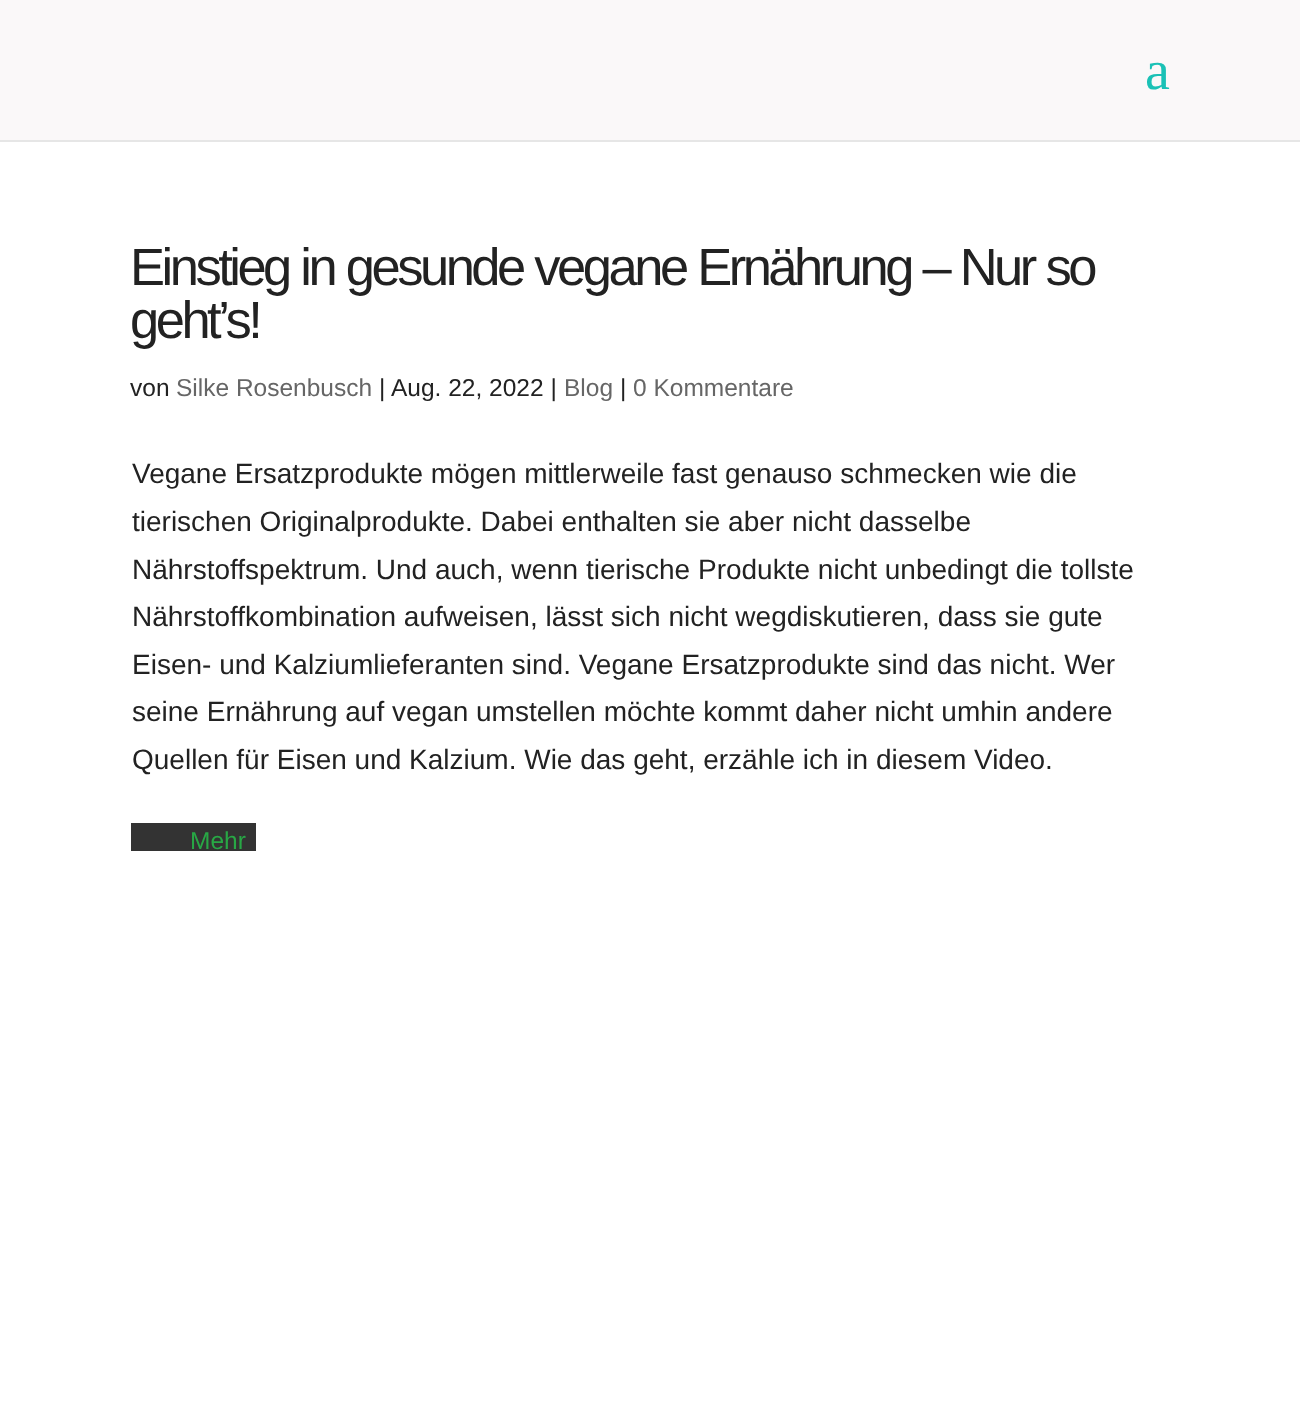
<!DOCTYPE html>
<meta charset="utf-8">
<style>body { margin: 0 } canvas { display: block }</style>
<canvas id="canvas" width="1300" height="1415"></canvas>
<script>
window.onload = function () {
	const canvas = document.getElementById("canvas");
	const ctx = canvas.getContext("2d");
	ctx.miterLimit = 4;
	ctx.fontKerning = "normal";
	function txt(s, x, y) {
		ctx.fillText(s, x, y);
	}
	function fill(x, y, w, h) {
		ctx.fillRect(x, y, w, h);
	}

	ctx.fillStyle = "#FFFFFF";
	fill(0, 0, 1300, 1415);
	ctx.fillStyle = "#E6E6E6";
	fill(0, 140, 1300, 2);
	ctx.fillStyle = "#FAF8F9";
	fill(0, 0, 1300, 140);
	ctx.fillStyle = "#333333";
	fill(131, 823, 125, 28);
	ctx.font = "56px Liberation Serif";
	ctx.fillStyle = "#1AC1B6";
	txt("a", 1145, 89);
	ctx.letterSpacing = "-3.5px";
	ctx.wordSpacing = "0.5px";
	ctx.font = "52.5px Liberation Sans";
	ctx.fillStyle = "#222222";
	txt("Einstieg in gesunde vegane Ernährung – Nur so", 130, 285);
	ctx.wordSpacing = "0px";
	txt("geht’s!", 130, 338);
	ctx.letterSpacing = "0px";
	ctx.font = "24.5px Liberation Sans";
	txt("von", 130, 396);
	ctx.fillStyle = "#666666";
	txt("Silke Rosenbusch", 176, 396);
	ctx.fillStyle = "#222222";
	txt("|", 379, 396);
	txt("Aug. 22, 2022 |", 391, 396);
	ctx.fillStyle = "#666666";
	txt("Blog", 564, 396);
	ctx.fillStyle = "#222222";
	txt("|", 620, 396);
	ctx.fillStyle = "#666666";
	txt("0 Kommentare", 633, 396);
	ctx.font = "28px Liberation Sans";
	ctx.fillStyle = "#222222";
	txt("Vegane Ersatzprodukte mögen mittlerweile fast genauso schmecken wie die", 132, 483);
	txt("tierischen Originalprodukte. Dabei enthalten sie aber nicht dasselbe", 132, 531);
	txt("Nährstoffspektrum. Und auch, wenn tierische Produkte nicht unbedingt die tollste", 132, 579);
	txt("Nährstoffkombination aufweisen, lässt sich nicht wegdiskutieren, dass sie gute", 132, 626);
	txt("Eisen- und Kalziumlieferanten sind. Vegane Ersatzprodukte sind das nicht. Wer", 132, 674);
	txt("seine Ernährung auf vegan umstellen möchte kommt daher nicht umhin andere", 132, 721);
	txt("Quellen für Eisen und Kalzium. Wie das geht, erzähle ich in diesem Video.", 132, 769);
	ctx.font = "24.5px Liberation Sans";
	ctx.fillStyle = "#28A745";
	txt("Mehr", 190, 849);
};
</script>
